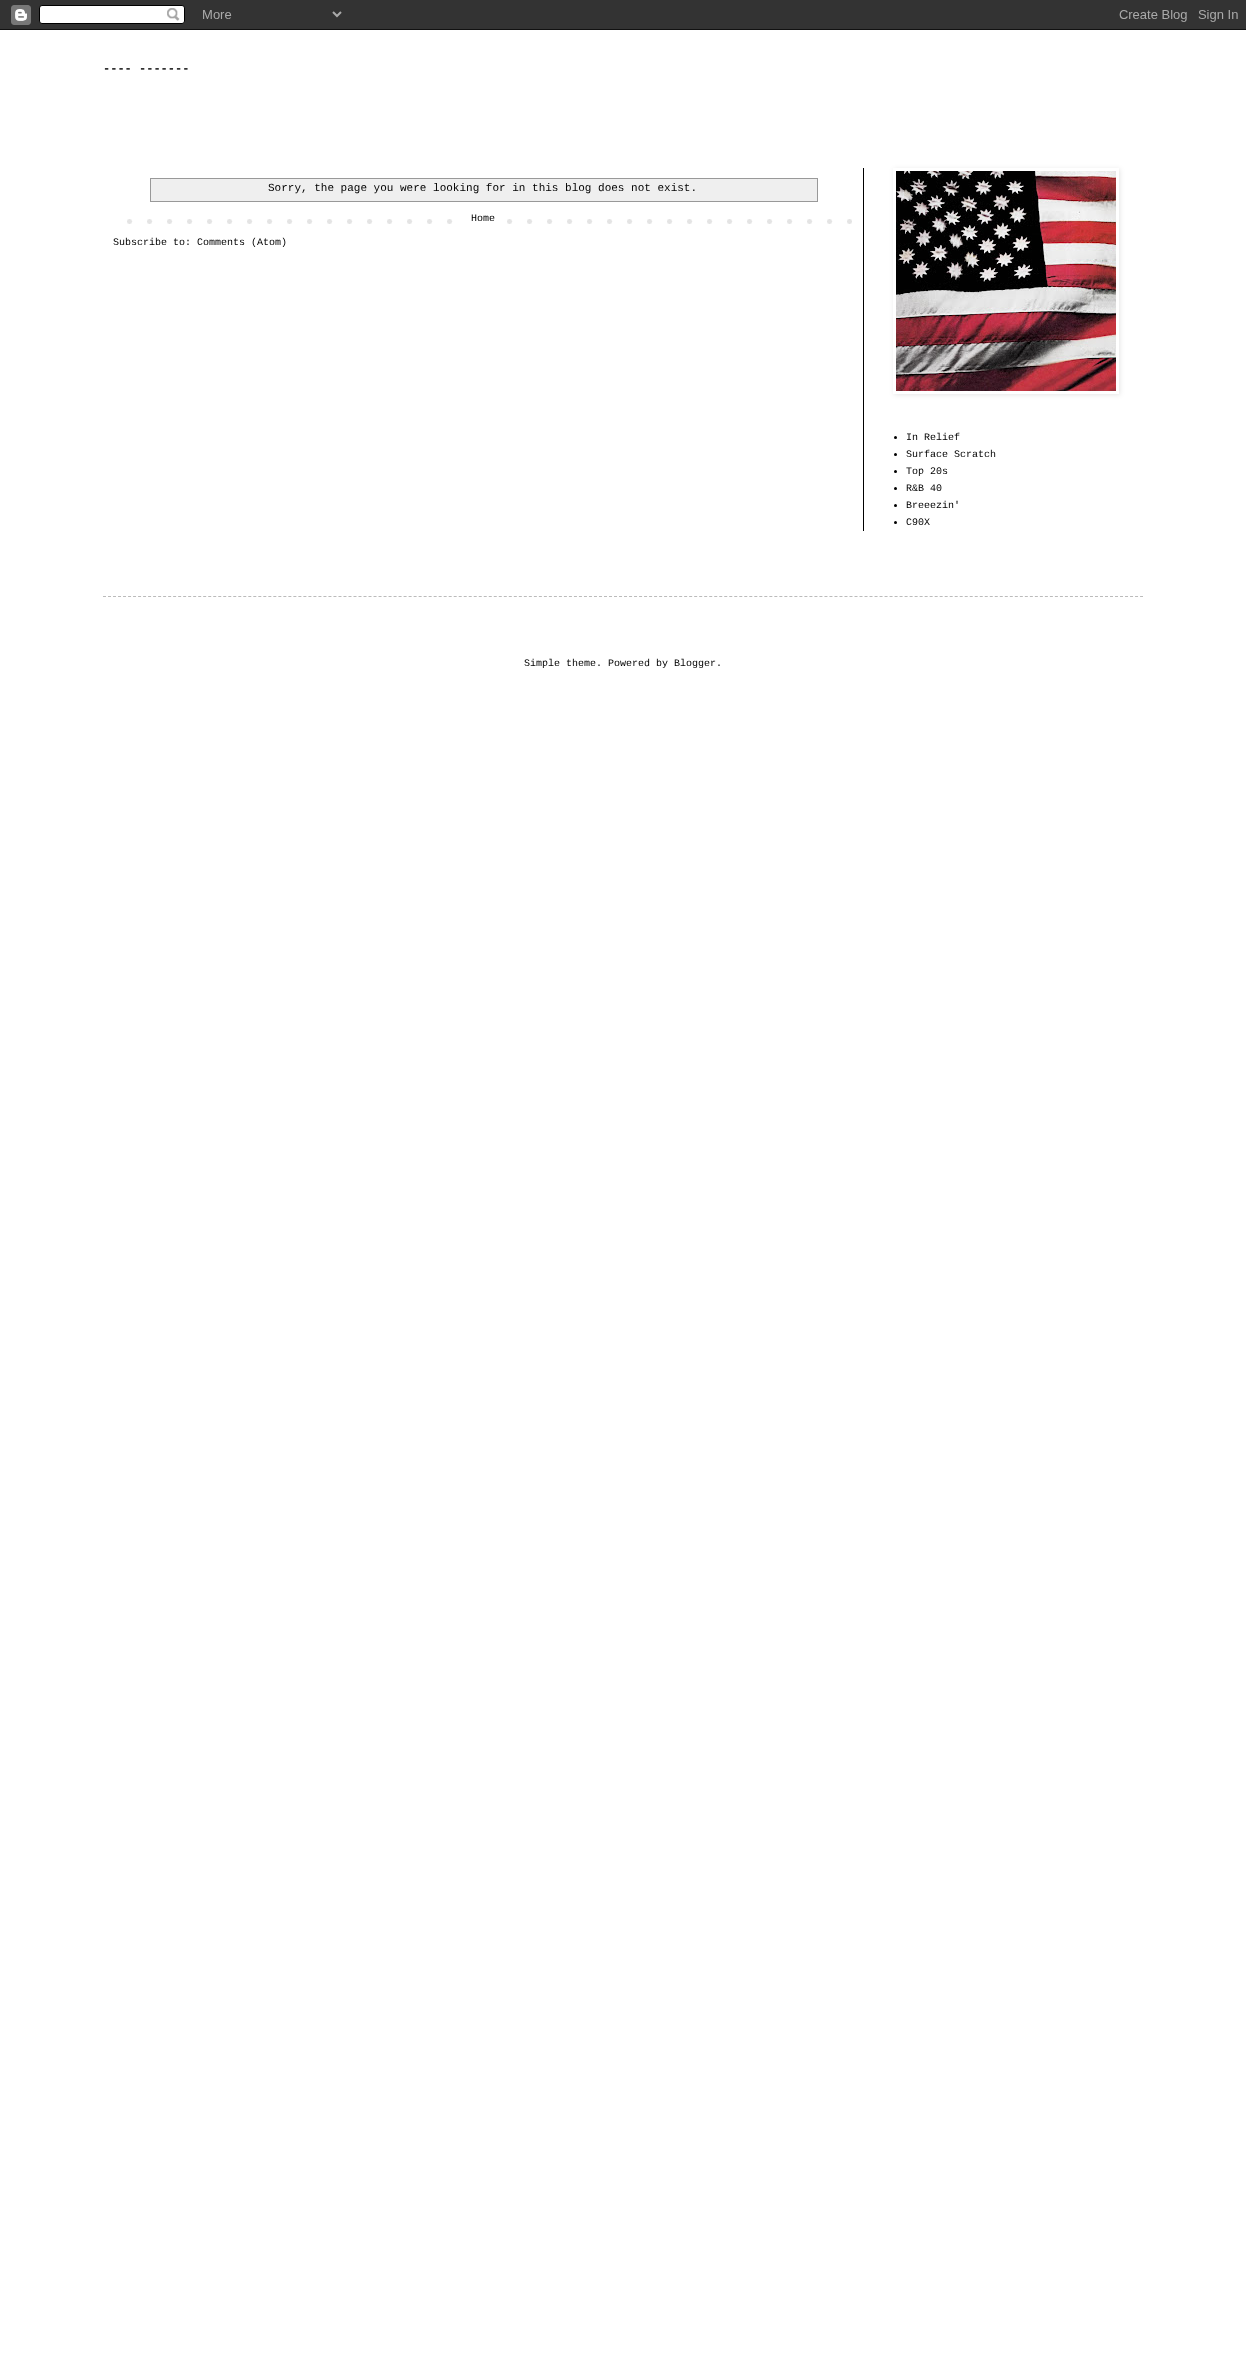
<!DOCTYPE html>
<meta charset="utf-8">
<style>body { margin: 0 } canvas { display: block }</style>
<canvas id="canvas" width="1246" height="2366"></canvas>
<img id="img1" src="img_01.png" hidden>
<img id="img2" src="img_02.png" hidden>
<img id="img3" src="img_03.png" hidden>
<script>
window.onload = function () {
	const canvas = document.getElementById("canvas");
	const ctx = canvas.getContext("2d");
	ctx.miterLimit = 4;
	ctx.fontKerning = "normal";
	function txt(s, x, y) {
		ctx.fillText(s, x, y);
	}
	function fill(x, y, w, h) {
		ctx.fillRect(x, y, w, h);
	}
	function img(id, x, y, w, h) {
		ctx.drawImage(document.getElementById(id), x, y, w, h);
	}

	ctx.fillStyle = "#FFFFFF";
	fill(0, 0, 1246, 2366);
	img("img1", 0, 0, 1246, 30);
	ctx.fillStyle = "#000000";
	fill(863, 168, 1, 363);
	ctx.strokeStyle = "#999999";
	ctx.strokeRect(150.5, 178.5, 667, 23);
	ctx.fillStyle = "#EFEFEF";
	fill(151, 179, 666, 22);
	img("img2", 127, 219, 725, 5);
	ctx.fillStyle = "#FFFFFF";
	fill(467, 219, 26, 5);
	ctx.save();
	ctx.beginPath();
	ctx.moveTo(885, 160);
	ctx.lineTo(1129, 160);
	ctx.lineTo(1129, 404);
	ctx.lineTo(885, 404);
	ctx.closePath();
	ctx.moveTo(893, 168);
	ctx.lineTo(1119, 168);
	ctx.lineTo(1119, 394);
	ctx.lineTo(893, 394);
	ctx.closePath();
	ctx.clip("evenodd");
	ctx.fillStyle = "rgba(0, 0, 0, 0.1)";
	ctx.filter = "blur(2.5px)";
	ctx.beginPath();
	ctx.rect(894, 169, 226, 226);
	ctx.fill();
	ctx.filter = "none";
	ctx.restore();
	img("img3", 896, 171, 220, 220);
	ctx.fillStyle = "#000000";
	ctx.beginPath();
	ctx.arc(895.5, 437.5, 1.5, 0, Math.PI * 2);
	ctx.fill();
	ctx.beginPath();
	ctx.arc(895.5, 454.5, 1.5, 0, Math.PI * 2);
	ctx.fill();
	ctx.beginPath();
	ctx.arc(895.5, 471.5, 1.5, 0, Math.PI * 2);
	ctx.fill();
	ctx.beginPath();
	ctx.arc(895.5, 488.5, 1.5, 0, Math.PI * 2);
	ctx.fill();
	ctx.beginPath();
	ctx.arc(895.5, 505.5, 1.5, 0, Math.PI * 2);
	ctx.fill();
	ctx.beginPath();
	ctx.arc(895.5, 522.5, 1.5, 0, Math.PI * 2);
	ctx.fill();
	ctx.beginPath();
	ctx.moveTo(103, 596.5);
	ctx.lineTo(1143, 596.5);
	ctx.strokeStyle = "#BBBBBB";
	ctx.setLineDash([3, 2.01]);
	ctx.stroke();
	ctx.font = "bold 12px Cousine";
	txt("---- -------", 103, 72);
	ctx.font = "11px Cousine";
	txt("Sorry, the page you were looking for in this blog does not exist.", 268, 191);
	ctx.font = "10px Cousine";
	txt("Home", 471, 221);
	txt("Subscribe to: Comments (Atom)", 113, 245);
	txt("In Relief", 906, 440);
	txt("Surface Scratch", 906, 457);
	txt("Top 20s", 906, 474);
	txt("R&B 40", 906, 491);
	txt("Breeezin'", 906, 508);
	txt("C90X", 906, 525);
	txt("Simple theme. Powered by Blogger.", 524, 666);
};
</script>
